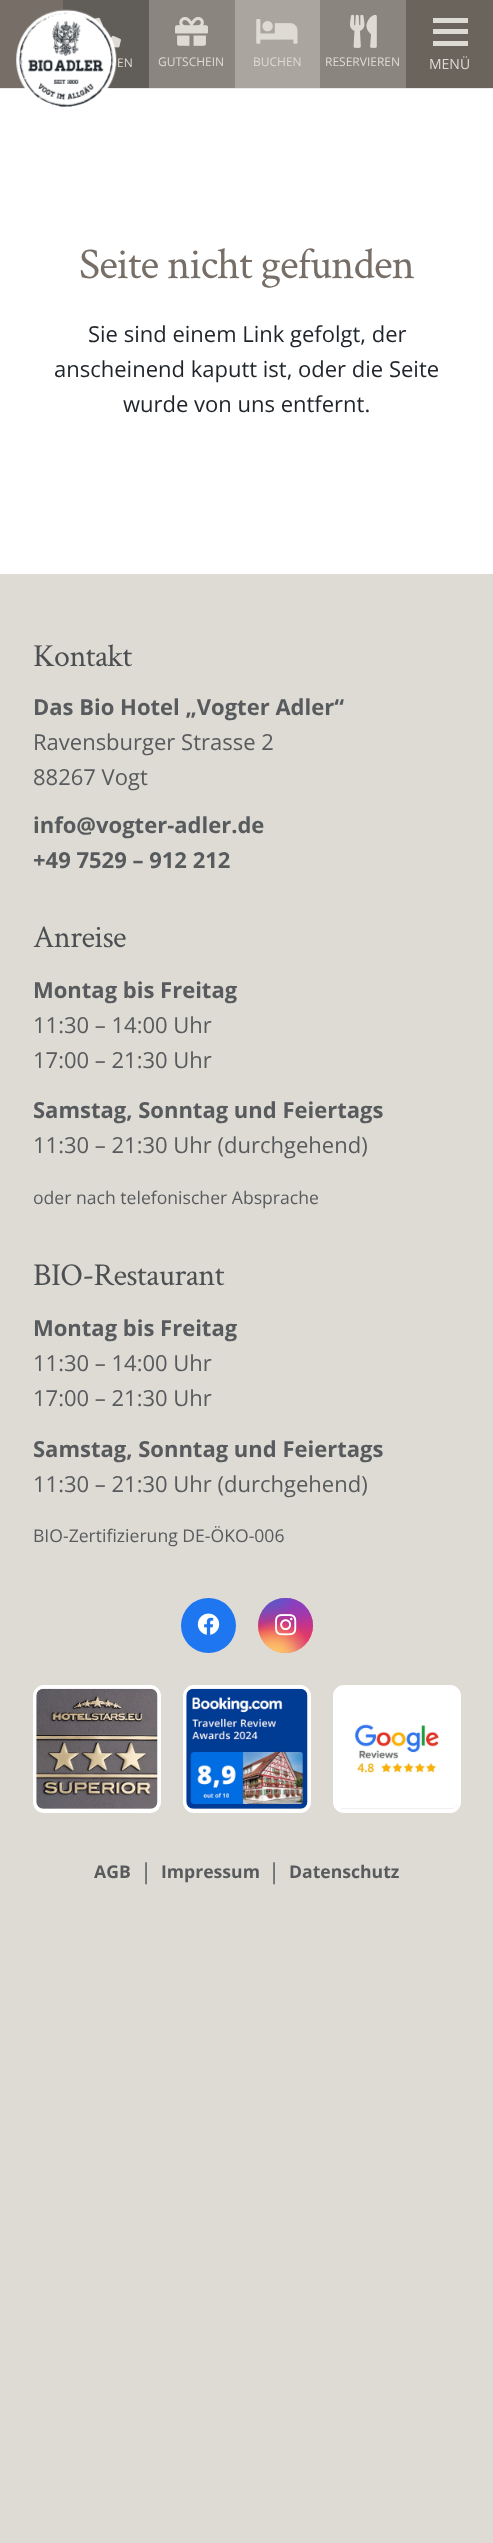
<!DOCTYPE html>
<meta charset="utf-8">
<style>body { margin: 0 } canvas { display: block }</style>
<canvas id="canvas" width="493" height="2543"></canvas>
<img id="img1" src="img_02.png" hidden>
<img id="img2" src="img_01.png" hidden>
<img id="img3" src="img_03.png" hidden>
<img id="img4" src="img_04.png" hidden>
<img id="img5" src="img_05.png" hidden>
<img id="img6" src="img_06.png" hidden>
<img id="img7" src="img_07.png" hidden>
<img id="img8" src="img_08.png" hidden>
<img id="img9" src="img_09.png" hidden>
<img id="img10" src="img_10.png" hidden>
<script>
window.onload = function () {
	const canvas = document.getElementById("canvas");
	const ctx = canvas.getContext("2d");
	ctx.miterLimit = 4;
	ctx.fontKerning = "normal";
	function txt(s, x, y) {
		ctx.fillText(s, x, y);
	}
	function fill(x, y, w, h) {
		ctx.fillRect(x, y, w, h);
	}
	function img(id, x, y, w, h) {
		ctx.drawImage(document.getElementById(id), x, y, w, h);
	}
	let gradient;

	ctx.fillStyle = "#DEDBD5";
	fill(0, 0, 493, 2543);
	ctx.fillStyle = "#FFFFFF";
	fill(0, 89, 493, 485);
	ctx.fillStyle = "#EBEBEB";
	ctx.beginPath();
	ctx.moveTo(0, 88);
	ctx.lineTo(0, 89);
	ctx.lineTo(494, 89);
	ctx.lineTo(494, 1);
	ctx.lineTo(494, 88);
	ctx.closePath();
	ctx.fill();
	ctx.fillStyle = "#776F67";
	fill(0, 0, 63, 88);
	ctx.fillStyle = "#615D59";
	fill(63, 0, 86, 88);
	img("img1", 93, 17, 28, 31);
	ctx.fillStyle = "#1F252B";
	ctx.beginPath();
	ctx.arc(66.5, 56.5, 46.5, 0, Math.PI * 2);
	ctx.fill();
	img("img2", 16, 9, 101, 98);
	ctx.fillStyle = "#8A857E";
	fill(149, 0, 86, 88);
	img("img3", 175, 17, 33, 29);
	ctx.fillStyle = "#AAA59E";
	fill(235, 0, 85, 88);
	img("img4", 256, 19, 42, 25);
	ctx.fillStyle = "#8A857E";
	fill(320, 0, 86, 88);
	img("img5", 350, 14, 27, 34);
	ctx.fillStyle = "#6B645D";
	fill(406, 0, 87, 88);
	ctx.fillStyle = "#DEDBD5";
	fill(433, 29, 35, 5);
	fill(433, 18, 35, 5);
	fill(433, 41, 35, 5);
	ctx.fillStyle = "#1E77F0";
	ctx.beginPath();
	ctx.arc(208.5, 1625.5, 27.5, 0, Math.PI * 2);
	ctx.fill();
	img("img6", 197, 1613, 23, 22);
	gradient = ctx.createLinearGradient(285, 1598, 285, 1653);
	gradient.addColorStop(0, "#6559CA");
	gradient.addColorStop(0.3, "#BC318F");
	gradient.addColorStop(0.5, "#E42E66");
	gradient.addColorStop(0.7, "#FA5332");
	gradient.addColorStop(1, "#FFDC80");
	ctx.fillStyle = gradient;
	ctx.beginPath();
	ctx.arc(285.5, 1625.5, 27.5, 0, Math.PI * 2);
	ctx.fill();
	gradient = ctx.createRadialGradient(313, 1653, 0, 313, 1653, 78);
	gradient.addColorStop(0, "#D9317A");
	gradient.addColorStop(1, "rgba(217, 49, 122, 0)");
	ctx.fillStyle = gradient;
	ctx.beginPath();
	ctx.arc(285.5, 1625.5, 27.5, 0, Math.PI * 2);
	ctx.fill();
	gradient = ctx.createRadialGradient(291, 802.03, 0, 291, 802.03, 47);
	gradient.addColorStop(0, "#893DC2");
	gradient.addColorStop(0.5, "rgba(137, 61, 194, 0)");
	ctx.fillStyle = gradient;
	ctx.beginPath();
	ctx.arc(285.5, 1625.5, 27.5, 0, Math.PI * 2);
	ctx.save();
	ctx.clip();
	ctx.scale(1, 93 / 47);
	ctx.fillRect(0, 0, 493, 1286);
	ctx.restore();
	gradient = ctx.createRadialGradient(313, 1598, 0, 313, 1598, 78);
	gradient.addColorStop(0, "#893DC2");
	gradient.addColorStop(0.5, "rgba(137, 61, 194, 0)");
	ctx.fillStyle = gradient;
	ctx.beginPath();
	ctx.arc(285.5, 1625.5, 27.5, 0, Math.PI * 2);
	ctx.fill();
	gradient = ctx.createRadialGradient(269, 831.97, 0, 269, 831.97, 62);
	gradient.addColorStop(0, "#5258CF");
	gradient.addColorStop(0.5, "rgba(82, 88, 207, 0)");
	ctx.fillStyle = gradient;
	ctx.beginPath();
	ctx.arc(285.5, 1625.5, 27.5, 0, Math.PI * 2);
	ctx.save();
	ctx.clip();
	ctx.scale(1, 117 / 62);
	ctx.fillRect(0, 0, 493, 1348);
	ctx.restore();
	gradient = ctx.createRadialGradient(258, 1273.73, 0, 258, 1273.73, 78);
	gradient.addColorStop(0, "#5258CF");
	gradient.addColorStop(0.5, "rgba(82, 88, 207, 0)");
	ctx.fillStyle = gradient;
	ctx.beginPath();
	ctx.arc(285.5, 1625.5, 27.5, 0, Math.PI * 2);
	ctx.save();
	ctx.clip();
	ctx.scale(1, 97 / 78);
	ctx.fillRect(0, 0, 493, 2045);
	ctx.restore();
	gradient = ctx.createRadialGradient(263, 1675, 0, 263, 1675, 92);
	gradient.addColorStop(0, "#FEDA7E");
	gradient.addColorStop(0.5, "rgba(254, 218, 126, 0)");
	ctx.fillStyle = gradient;
	ctx.beginPath();
	ctx.arc(285.5, 1625.5, 27.5, 0, Math.PI * 2);
	ctx.fill();
	gradient = ctx.createRadialGradient(277, 1653, 0, 277, 1653, 66);
	gradient.addColorStop(0, "#FEC564");
	gradient.addColorStop(0.5, "rgba(254, 197, 100, 0)");
	ctx.fillStyle = gradient;
	ctx.beginPath();
	ctx.arc(285.5, 1625.5, 27.5, 0, Math.PI * 2);
	ctx.fill();
	img("img7", 275, 1614, 22, 22);
	ctx.beginPath();
	ctx.roundRect(35, 1687, 124, 124, 9);
	ctx.strokeStyle = "#FFFFFF";
	ctx.lineWidth = 4;
	ctx.stroke();
	img("img8", 36, 1688, 122, 121);
	ctx.beginPath();
	ctx.roundRect(185, 1687, 124, 124, 9);
	ctx.stroke();
	img("img9", 186, 1688, 122, 121);
	ctx.beginPath();
	ctx.roundRect(335, 1687, 124, 124, 9);
	ctx.stroke();
	img("img10", 337, 1689, 120, 120);
	ctx.font = "12px Open Sans";
	ctx.fillStyle = "#DEDBD5";
	txt("EN", 117, 67);
	txt("GUTSCHEIN", 158, 66);
	txt("BUCHEN", 253, 66);
	txt("RESERVIEREN", 325, 66);
	ctx.font = "14px Open Sans";
	txt("MENÜ", 429, 69);
	ctx.letterSpacing = "-0.9px";
	ctx.font = "44px Crimson Text";
	ctx.fillStyle = "#776F67";
	txt("Seite nicht gefunden", 79, 278);
	ctx.letterSpacing = "0px";
	ctx.font = "22px Open Sans";
	ctx.fillStyle = "#1F252B";
	txt("Sie sind einem Link gefolgt, der", 88, 342);
	txt("anscheinend kaputt ist, oder die Seite", 54, 377);
	txt("wurde von uns entfernt.", 123, 412);
	ctx.letterSpacing = "-0.6px";
	ctx.font = "32px Crimson Text";
	ctx.fillStyle = "#4D5052";
	txt("Kontakt", 33, 666);
	ctx.letterSpacing = "0px";
	ctx.font = "bold 22px Open Sans";
	ctx.fillStyle = "#585B5D";
	txt("Das Bio Hotel „Vogter Adler“", 33, 715);
	ctx.font = "22px Open Sans";
	txt("Ravensburger Strasse 2", 33, 750);
	txt("88267 Vogt", 33, 785);
	ctx.font = "bold 22px Open Sans";
	txt("info@vogter-adler.de", 33, 833);
	txt("+49 7529 – 912 212", 33, 868);
	ctx.letterSpacing = "-0.6px";
	ctx.font = "32px Crimson Text";
	ctx.fillStyle = "#4D5052";
	txt("Anreise", 33, 947);
	ctx.letterSpacing = "0px";
	ctx.font = "bold 22px Open Sans";
	ctx.fillStyle = "#585B5D";
	txt("Montag bis Freitag", 33, 998);
	ctx.font = "22px Open Sans";
	txt("11:30 – 14:00 Uhr", 33, 1033);
	txt("17:00 – 21:30 Uhr", 33, 1068);
	ctx.font = "bold 22px Open Sans";
	txt("Samstag, Sonntag und Feiertags", 33, 1118);
	ctx.font = "22px Open Sans";
	txt("11:30 – 21:30 Uhr (durchgehend)", 33, 1153);
	ctx.font = "17.6px Open Sans";
	txt("oder nach telefonischer Absprache", 33, 1204);
	ctx.letterSpacing = "-0.6px";
	ctx.font = "32px Crimson Text";
	ctx.fillStyle = "#4D5052";
	txt("BIO-Restaurant", 33, 1285);
	ctx.letterSpacing = "0px";
	ctx.font = "bold 22px Open Sans";
	ctx.fillStyle = "#585B5D";
	txt("Montag bis Freitag", 33, 1336);
	ctx.font = "22px Open Sans";
	txt("11:30 – 14:00 Uhr", 33, 1371);
	txt("17:00 – 21:30 Uhr", 33, 1406);
	ctx.font = "bold 22px Open Sans";
	txt("Samstag, Sonntag und Feiertags", 33, 1457);
	ctx.font = "22px Open Sans";
	txt("11:30 – 21:30 Uhr (durchgehend)", 33, 1492);
	ctx.font = "17.6px Open Sans";
	txt("BIO-Zertifizierung DE-ÖKO-006", 33, 1542);
	ctx.font = "bold 17.6px Open Sans";
	txt("AGB", 94, 1878);
	ctx.font = "22px Open Sans";
	txt("|", 140, 1879);
	ctx.font = "bold 17.6px Open Sans";
	txt("Impressum", 161, 1878);
	ctx.font = "22px Open Sans";
	txt("|", 268, 1879);
	ctx.font = "bold 17.6px Open Sans";
	txt("Datenschutz", 289, 1878);
};
</script>
